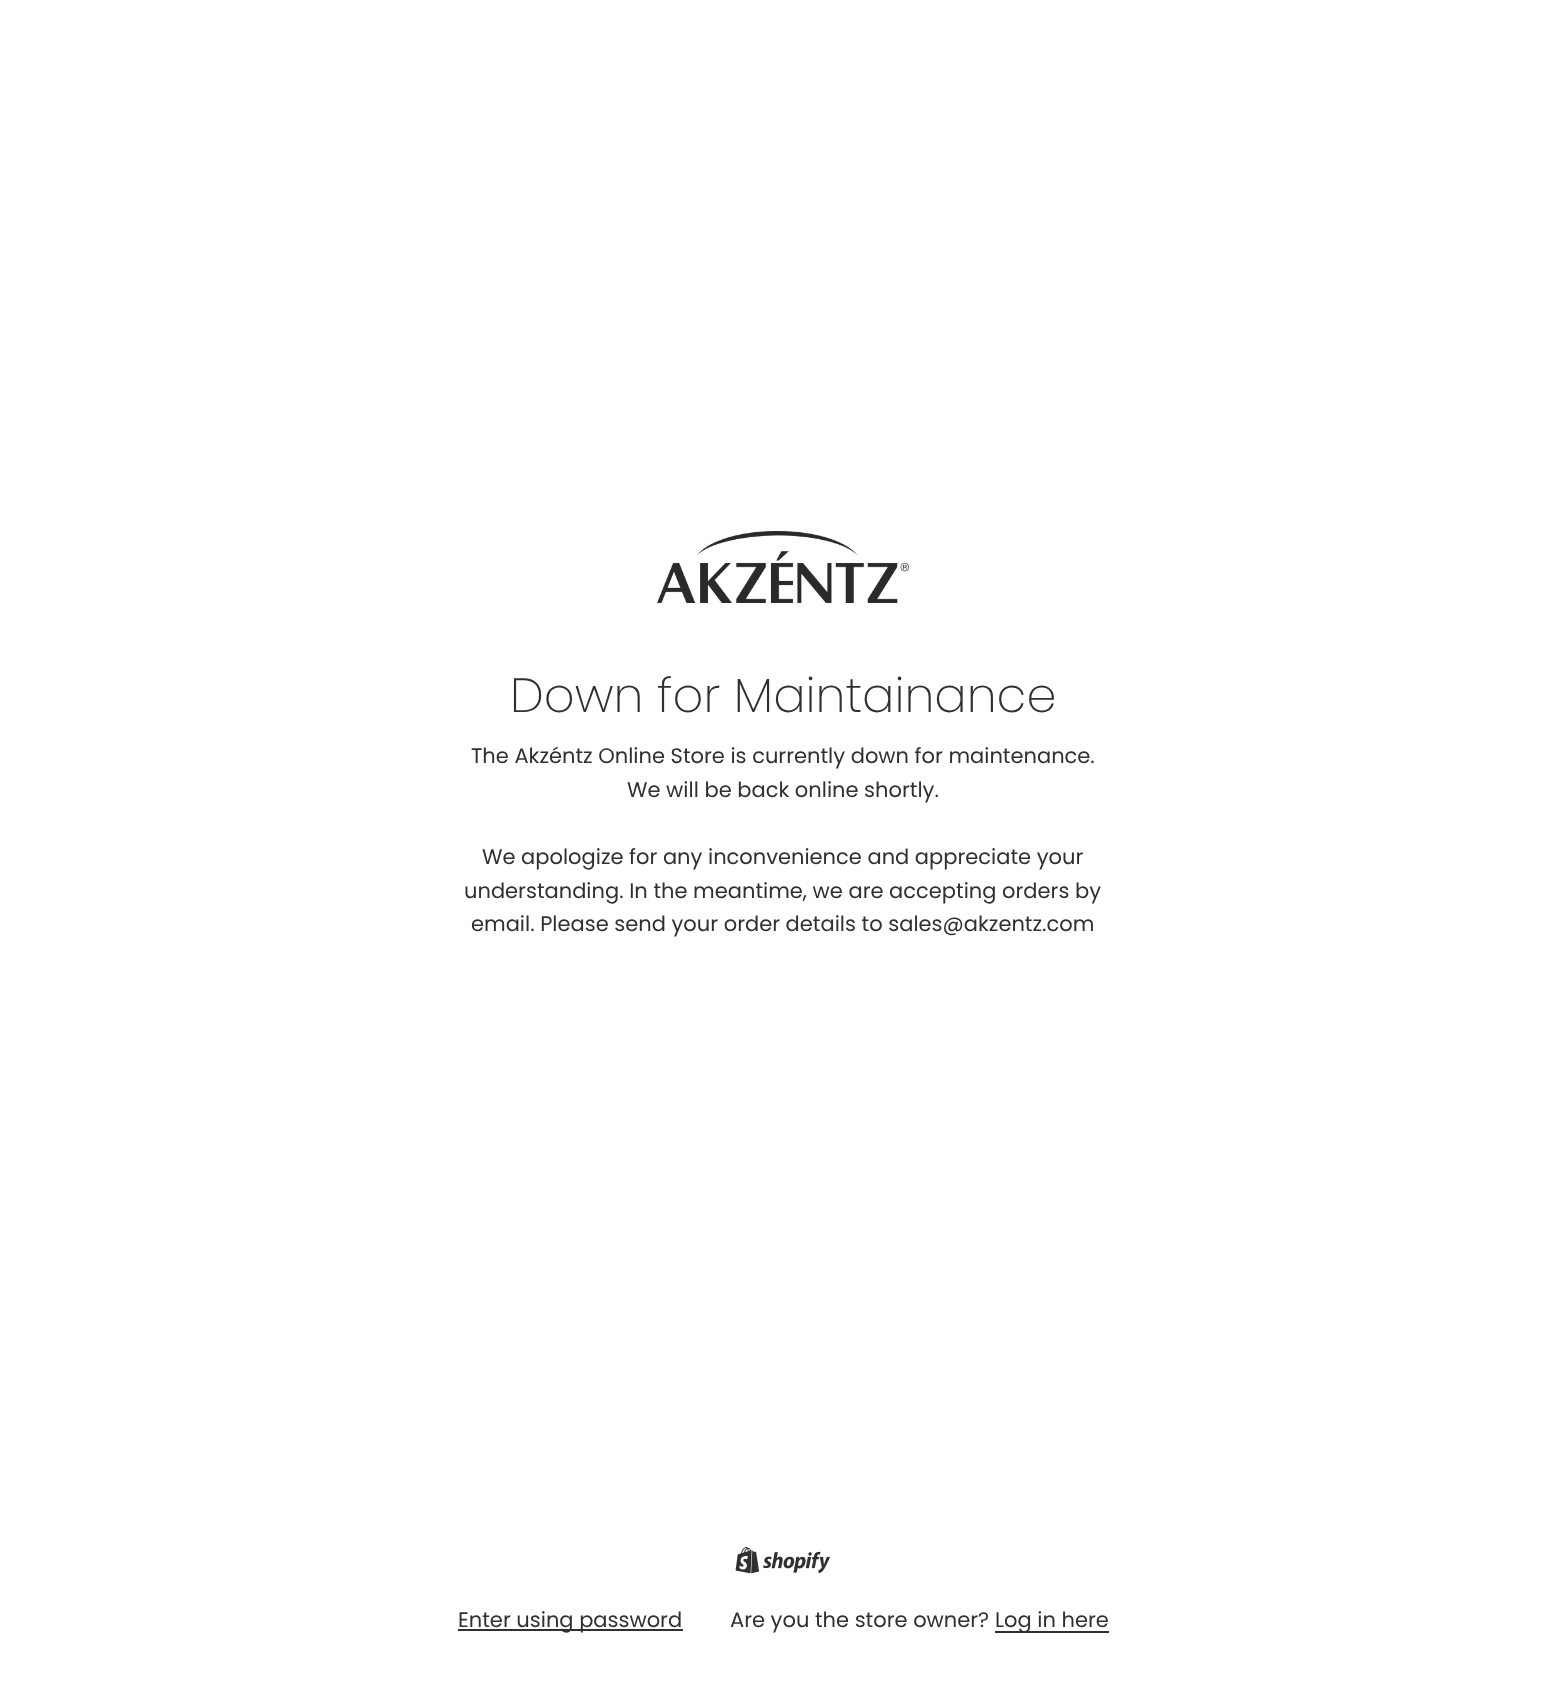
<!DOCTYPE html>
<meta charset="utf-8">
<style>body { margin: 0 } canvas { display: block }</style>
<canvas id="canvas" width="1565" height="1683"></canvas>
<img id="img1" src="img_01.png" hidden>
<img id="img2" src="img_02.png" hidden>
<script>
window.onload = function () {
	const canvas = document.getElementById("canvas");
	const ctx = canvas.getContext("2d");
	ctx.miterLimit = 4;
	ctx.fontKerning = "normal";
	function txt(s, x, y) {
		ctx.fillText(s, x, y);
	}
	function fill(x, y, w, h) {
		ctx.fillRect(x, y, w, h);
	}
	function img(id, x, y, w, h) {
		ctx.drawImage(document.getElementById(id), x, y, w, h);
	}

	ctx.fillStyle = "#FFFFFF";
	fill(0, 0, 1565, 1683);
	img("img1", 657, 531, 252, 72);
	img("img2", 735, 1547, 95, 27);
	ctx.fillStyle = "#303030";
	fill(458, 1629, 225, 2);
	fill(995, 1631, 114, 2);
	ctx.font = "300 48px Poppins";
	txt("Down for Maintainance", 510, 712);
	ctx.font = "21px Poppins";
	txt("The Akzéntz Online Store is currently down for maintenance.", 471, 763);
	txt("We will be back online shortly.", 627, 797);
	txt("We apologize for any inconvenience and appreciate your", 482, 864);
	txt("understanding. In the meantime, we are accepting orders by", 464, 898);
	txt("email. Please send your order details to sales@akzentz.com", 471, 931);
	txt("Enter using password", 458, 1627);
	txt("Are you the store owner?", 730, 1627);
	txt("Log in here", 995, 1627);
};
</script>
